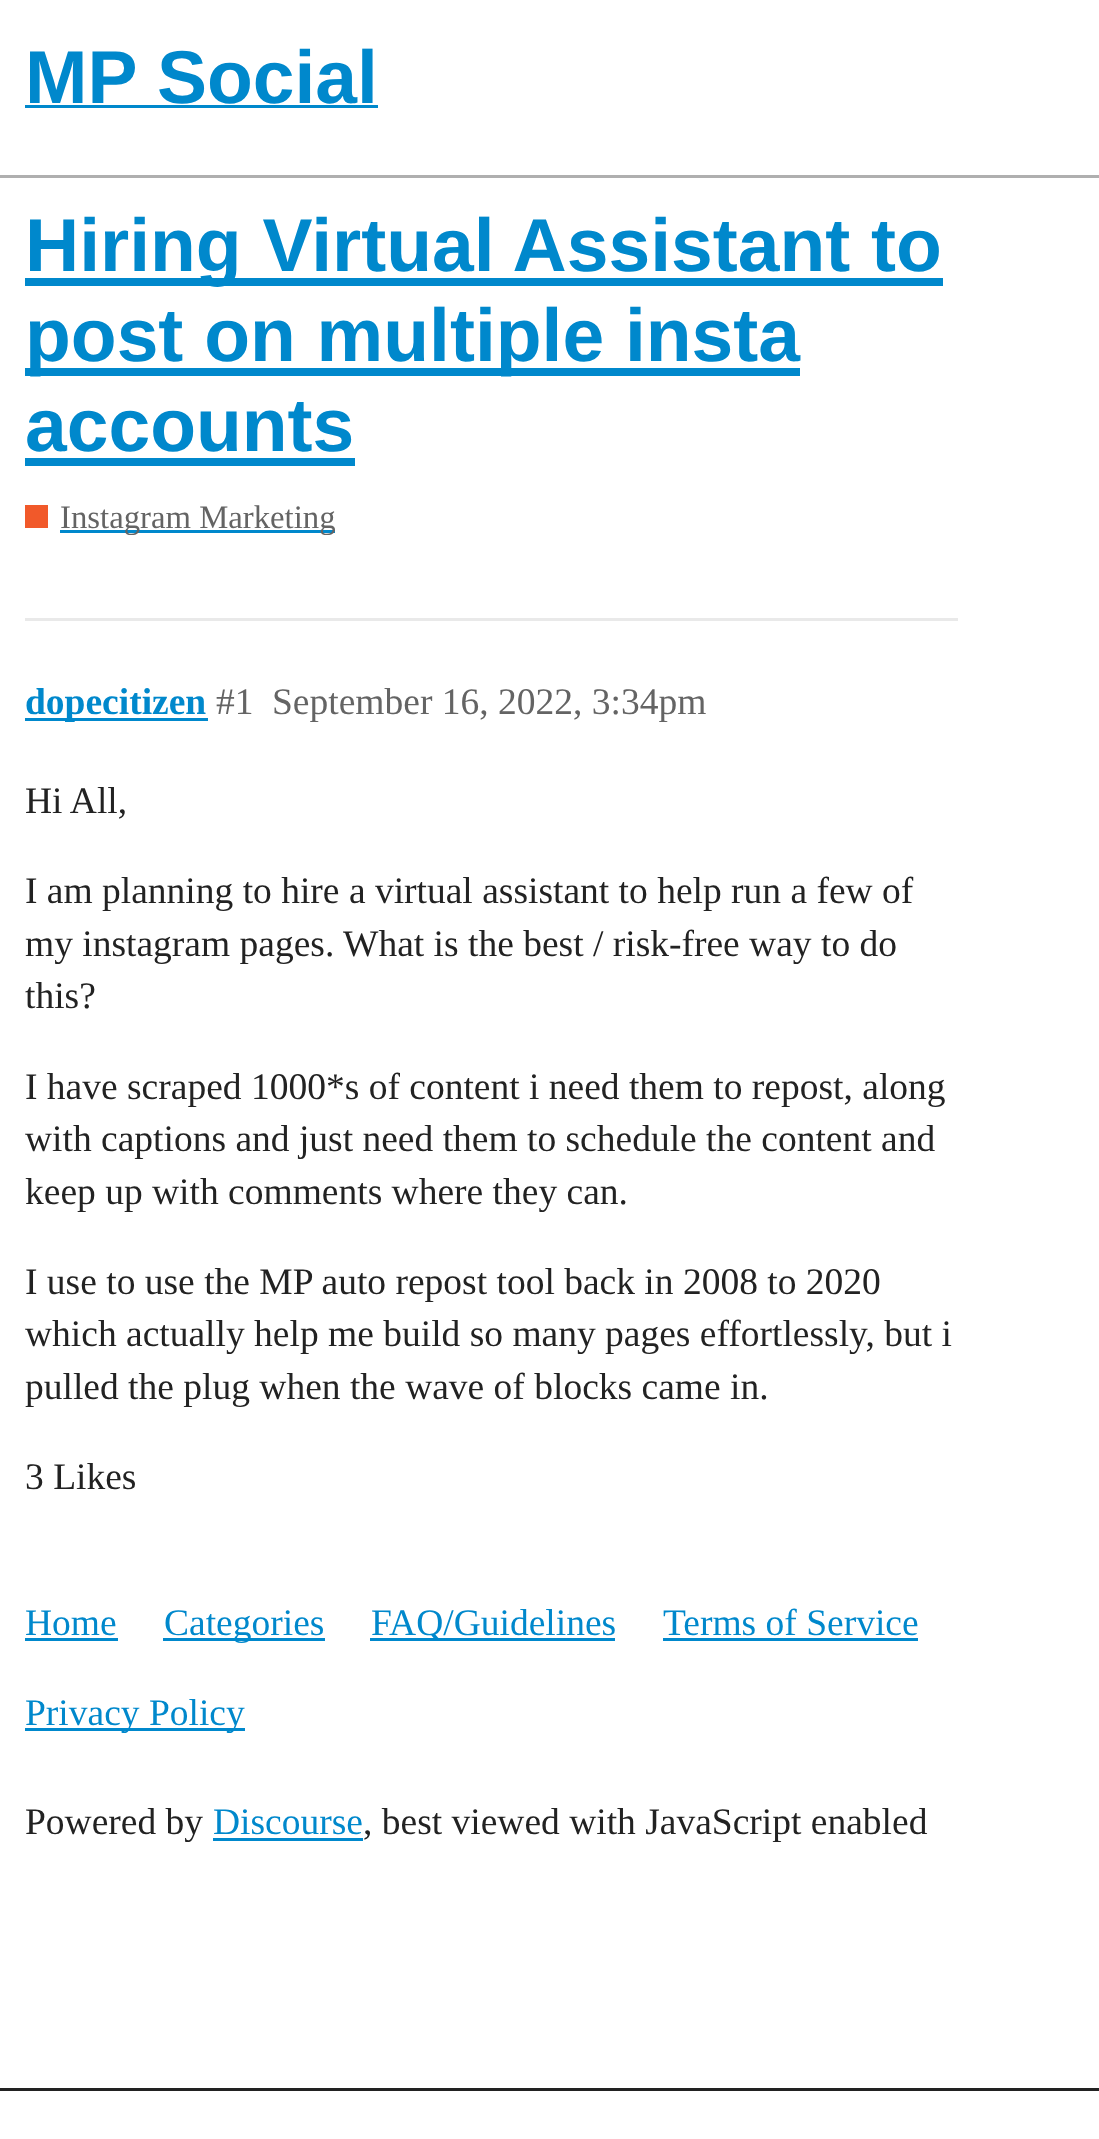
<!DOCTYPE html>
<meta charset="utf-8">
<style>body { margin: 0 } canvas { display: block }</style>
<canvas id="canvas" width="1099" height="2139"></canvas>
<script>
window.onload = function () {
	const canvas = document.getElementById("canvas");
	const ctx = canvas.getContext("2d");
	ctx.miterLimit = 4;
	ctx.fontKerning = "normal";
	function txt(s, x, y) {
		ctx.fillText(s, x, y);
	}
	function fill(x, y, w, h) {
		ctx.fillRect(x, y, w, h);
	}

	ctx.fillStyle = "#FFFFFF";
	fill(0, 0, 1099, 2139);
	ctx.fillStyle = "#AFAFAF";
	fill(0, 175, 1099, 3);
	ctx.fillStyle = "#0088CC";
	fill(25, 105, 353, 3);
	fill(25, 278, 918, 8);
	fill(25, 368, 775, 8);
	fill(25, 458, 330, 8);
	ctx.fillStyle = "#F1592A";
	fill(25, 505, 23, 23);
	ctx.fillStyle = "#0088CC";
	fill(60, 530, 275, 3);
	ctx.fillStyle = "#E9E9E9";
	fill(25, 618, 933, 3);
	ctx.fillStyle = "#0088CC";
	fill(25, 718, 183, 3);
	fill(25, 1638, 93, 3);
	fill(163, 1638, 162, 3);
	fill(370, 1638, 245, 3);
	fill(663, 1638, 255, 3);
	fill(25, 1728, 220, 3);
	fill(213, 1838, 150, 3);
	ctx.fillStyle = "#222222";
	fill(0, 2088, 1099, 3);
	ctx.font = "bold 75px Liberation Sans";
	ctx.fillStyle = "#0088CC";
	txt("MP Social", 25, 103);
	txt("Hiring Virtual Assistant to", 25, 271);
	txt("post on multiple insta", 25, 361);
	txt("accounts", 25, 451);
	ctx.font = "32.75px Liberation Serif";
	ctx.fillStyle = "#646464";
	txt("Instagram Marketing", 60, 528);
	ctx.font = "bold 37.5px Liberation Serif";
	ctx.fillStyle = "#0088CC";
	txt("dopecitizen", 25, 714);
	ctx.font = "37.5px Liberation Serif";
	ctx.fillStyle = "#646464";
	txt("#1", 216, 714);
	txt("September 16, 2022, 3:34pm", 272, 714);
	ctx.fillStyle = "#222222";
	txt("Hi All,", 25, 813);
	txt("I am planning to hire a virtual assistant to help run a few of", 25, 903);
	txt("my instagram pages. What is the best / risk-free way to do", 25, 956);
	txt("this?", 25, 1008);
	txt("I have scraped 1000*s of content i need them to repost, along", 25, 1099);
	txt("with captions and just need them to schedule the content and", 25, 1151);
	txt("keep up with comments where they can.", 25, 1204);
	txt("I use to use the MP auto repost tool back in 2008 to 2020", 25, 1294);
	txt("which actually help me build so many pages effortlessly, but i", 25, 1346);
	txt("pulled the plug when the wave of blocks came in.", 25, 1399);
	txt("3 Likes", 25, 1489);
	ctx.fillStyle = "#0088CC";
	txt("Home", 25, 1635);
	txt("Categories", 164, 1635);
	txt("FAQ/Guidelines", 371, 1635);
	txt("Terms of Service", 663, 1635);
	txt("Privacy Policy", 25, 1725);
	ctx.fillStyle = "#222222";
	txt("Powered by", 25, 1834);
	ctx.fillStyle = "#0088CC";
	txt("Discourse", 213, 1834);
	ctx.fillStyle = "#222222";
	txt(", best viewed with JavaScript enabled", 363, 1834);
};
</script>
